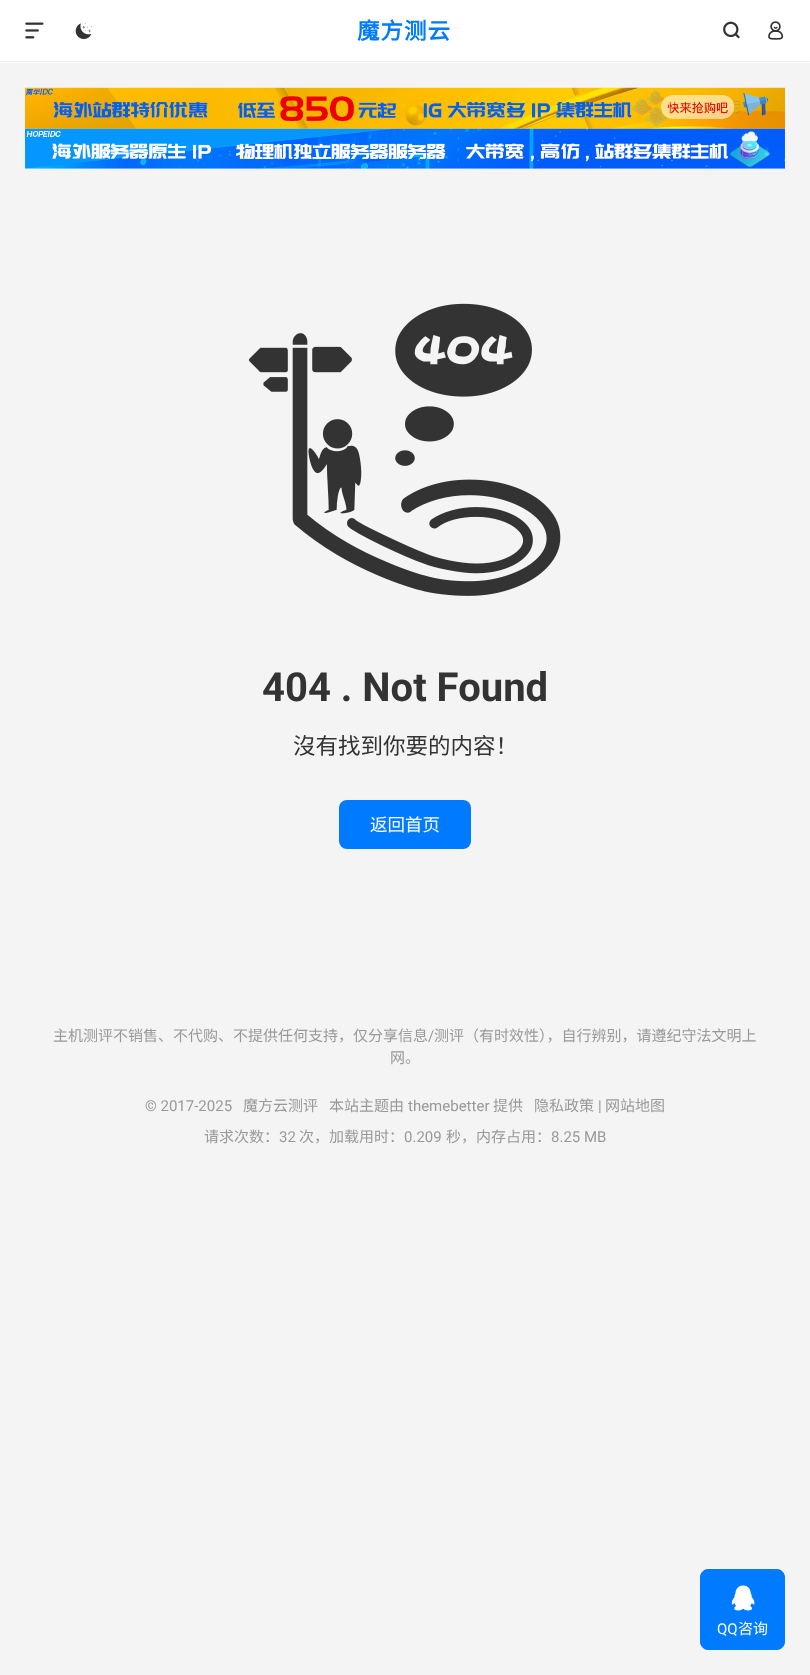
<!DOCTYPE html>
<meta charset="utf-8">
<style>body { margin: 0 } canvas { display: block }</style>
<canvas id="canvas" width="810" height="1675"></canvas>
<img id="img1" src="img_01.png" hidden>
<img id="img2" src="img_02.png" hidden>
<img id="img3" src="img_03.png" hidden>
<img id="img4" src="img_04.png" hidden>
<img id="img5" src="img_05.png" hidden>
<img id="img6" src="img_06.png" hidden>
<img id="img7" src="img_07.png" hidden>
<img id="img8" src="img_08.png" hidden>
<script>
window.onload = function () {
	const canvas = document.getElementById("canvas");
	const ctx = canvas.getContext("2d");
	ctx.miterLimit = 4;
	ctx.fontKerning = "normal";
	function txt(s, x, y) {
		ctx.fillText(s, x, y);
	}
	function fill(x, y, w, h) {
		ctx.fillRect(x, y, w, h);
	}
	function round(x, y, w, h, r) {
		ctx.beginPath();
		ctx.roundRect(x, y, w, h, r);
		ctx.fill();
	}
	function img(id, x, y, w, h) {
		ctx.drawImage(document.getElementById(id), x, y, w, h);
	}

	ctx.fillStyle = "#F4F4F4";
	fill(0, 0, 810, 1675);
	ctx.fillStyle = "#FFFFFF";
	fill(0, 0, 810, 63);
	img("img1", 25, 22, 19, 17);
	img("img2", 75, 22, 17, 18);
	img("img3", 723, 21, 17, 18);
	img("img4", 768, 21, 16, 19);
	ctx.fillStyle = "#EEEEEE";
	round(0, 61, 810, 1, 0.5);
	img("img5", 25, 87, 760, 42);
	img("img6", 25, 128, 760, 41);
	img("img7", 248, 303, 313, 293);
	ctx.fillStyle = "#007BFF";
	round(339, 800, 132, 49, 8);
	ctx.beginPath();
	ctx.roundRect(700.5, 1569.5, 84, 80, 7.5);
	ctx.fill();
	ctx.strokeStyle = "#007BFF";
	ctx.stroke();
	img("img8", 731, 1585, 24, 26);
	ctx.letterSpacing = "1px";
	ctx.font = "bold 22.5px Noto Sans CJK SC";
	txt("魔方测云", 357, 39);
	ctx.letterSpacing = "0px";
	ctx.font = "bold 40px Roboto";
	ctx.fillStyle = "#333333";
	txt("404 . Not Found", 262, 701);
	ctx.font = "22.5px Noto Sans CJK SC";
	txt("沒有找到你要的内容！", 293, 754);
	ctx.font = "17.5px Noto Sans CJK SC";
	ctx.fillStyle = "#FFFFFF";
	txt("返回首页", 370, 831);
	ctx.font = "15px Noto Sans CJK SC";
	ctx.fillStyle = "#999999";
	txt("主机测评不销售、不代购、不提供任何支持，仅分享信息", 53, 1041);
	ctx.font = "15px Roboto";
	txt("/", 428, 1041);
	ctx.font = "15px Noto Sans CJK SC";
	txt("测评（有时效性），自行辨别，请遵纪守法文明上", 434, 1041);
	txt("网。", 390, 1063);
	ctx.font = "15px Roboto";
	txt("© 2017-2025", 145, 1111);
	ctx.font = "15px Noto Sans CJK SC";
	txt("魔方云测评", 243, 1111);
	txt("本站主题由", 329, 1111);
	ctx.font = "15px Roboto";
	txt("themebetter", 408, 1111);
	ctx.font = "15px Noto Sans CJK SC";
	txt("提供", 493, 1111);
	txt("隐私政策", 534, 1111);
	ctx.font = "15px Roboto";
	txt("|", 598, 1111);
	ctx.font = "15px Noto Sans CJK SC";
	txt("网站地图", 605, 1111);
	txt("请求次数：", 204, 1142);
	ctx.font = "15px Roboto";
	txt("32", 279, 1142);
	ctx.font = "15px Noto Sans CJK SC";
	txt("次，加载用时：", 299, 1142);
	ctx.font = "15px Roboto";
	txt("0.209", 404, 1142);
	ctx.font = "15px Noto Sans CJK SC";
	txt("秒，内存占用：", 446, 1142);
	ctx.font = "15px Roboto";
	txt("8.25 MB", 551, 1142);
	ctx.fillStyle = "#FFFFFF";
	txt("QQ", 717, 1634);
	ctx.font = "15px Noto Sans CJK SC";
	txt("咨询", 738, 1634);
};
</script>
